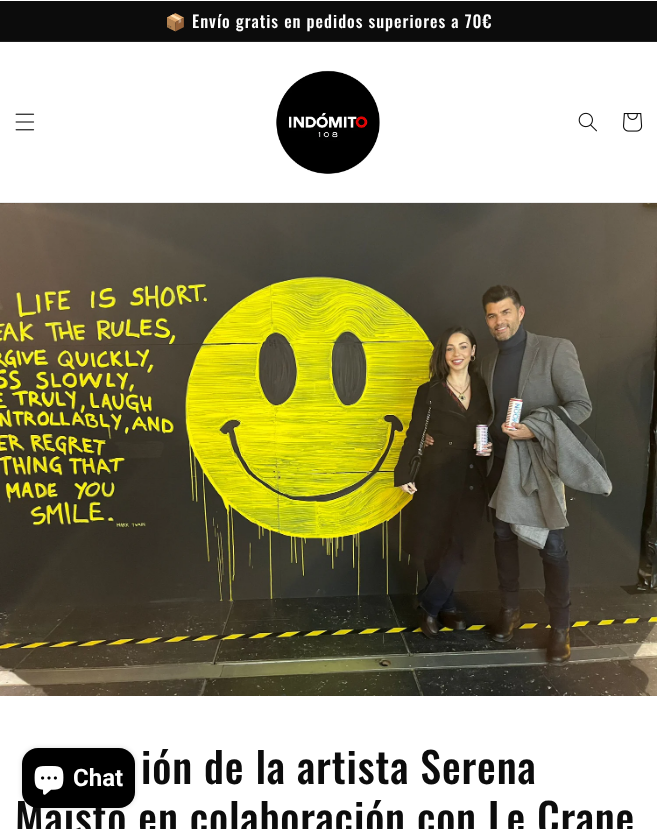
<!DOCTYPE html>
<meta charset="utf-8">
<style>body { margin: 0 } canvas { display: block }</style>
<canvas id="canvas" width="657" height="829"></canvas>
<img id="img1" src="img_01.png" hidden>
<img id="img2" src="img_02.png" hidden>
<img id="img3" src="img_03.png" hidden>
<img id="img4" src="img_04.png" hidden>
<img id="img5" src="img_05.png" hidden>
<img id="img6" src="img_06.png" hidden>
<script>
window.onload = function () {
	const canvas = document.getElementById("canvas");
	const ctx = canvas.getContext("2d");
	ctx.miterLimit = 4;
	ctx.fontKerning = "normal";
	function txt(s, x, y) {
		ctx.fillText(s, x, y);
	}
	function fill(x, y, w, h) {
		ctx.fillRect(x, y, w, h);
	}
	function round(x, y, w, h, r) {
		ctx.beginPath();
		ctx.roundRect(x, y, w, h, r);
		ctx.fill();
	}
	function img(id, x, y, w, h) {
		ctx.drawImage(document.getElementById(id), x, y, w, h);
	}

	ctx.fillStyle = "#FFFFFF";
	fill(0, 0, 657, 829);
	ctx.fillStyle = "#0C0C0C";
	fill(0, 1, 657, 40);
	ctx.fillStyle = "#1F1F1F";
	fill(0, 41, 657, 1);
	ctx.fillStyle = "#ECECEC";
	fill(0, 202, 657, 1);
	img("img1", 15, 113, 20, 18);
	img("img2", 276, 70, 104, 104);
	img("img3", 578, 112, 19, 20);
	img("img4", 623, 113, 20, 19);
	img("img5", 0, 203, 657, 493);
	ctx.fillStyle = "rgba(0, 0, 0, 0.15)";
	ctx.filter = "blur(2.5px)";
	ctx.beginPath();
	ctx.roundRect(22, 748, 113, 60, 16);
	ctx.fill();
	ctx.filter = "none";
	ctx.letterSpacing = "1px";
	ctx.font = "16.75px Noto Color Emoji";
	ctx.fillStyle = "#FFFFFF";
	txt("📦", 165, 28);
	ctx.font = "500 16.75px Oswald";
	txt("Envío gratis en pedidos superiores a 70€", 192, 28);
	ctx.letterSpacing = "0.85px";
	ctx.font = "500 42px Oswald";
	ctx.fillStyle = "#0C0C0C";
	txt("ión de la artista Serena", 141, 784);
	txt("Maisto en colaboración con Le Crane", 15, 835);
	ctx.fillStyle = "#000000";
	round(22, 748, 113, 60, 16);
	img("img6", 34, 766, 30, 29);
	ctx.letterSpacing = "0px";
	ctx.font = "bold 24px Roboto";
	ctx.fillStyle = "#FFFFFF";
	txt("Chat", 73, 786);
};
</script>
